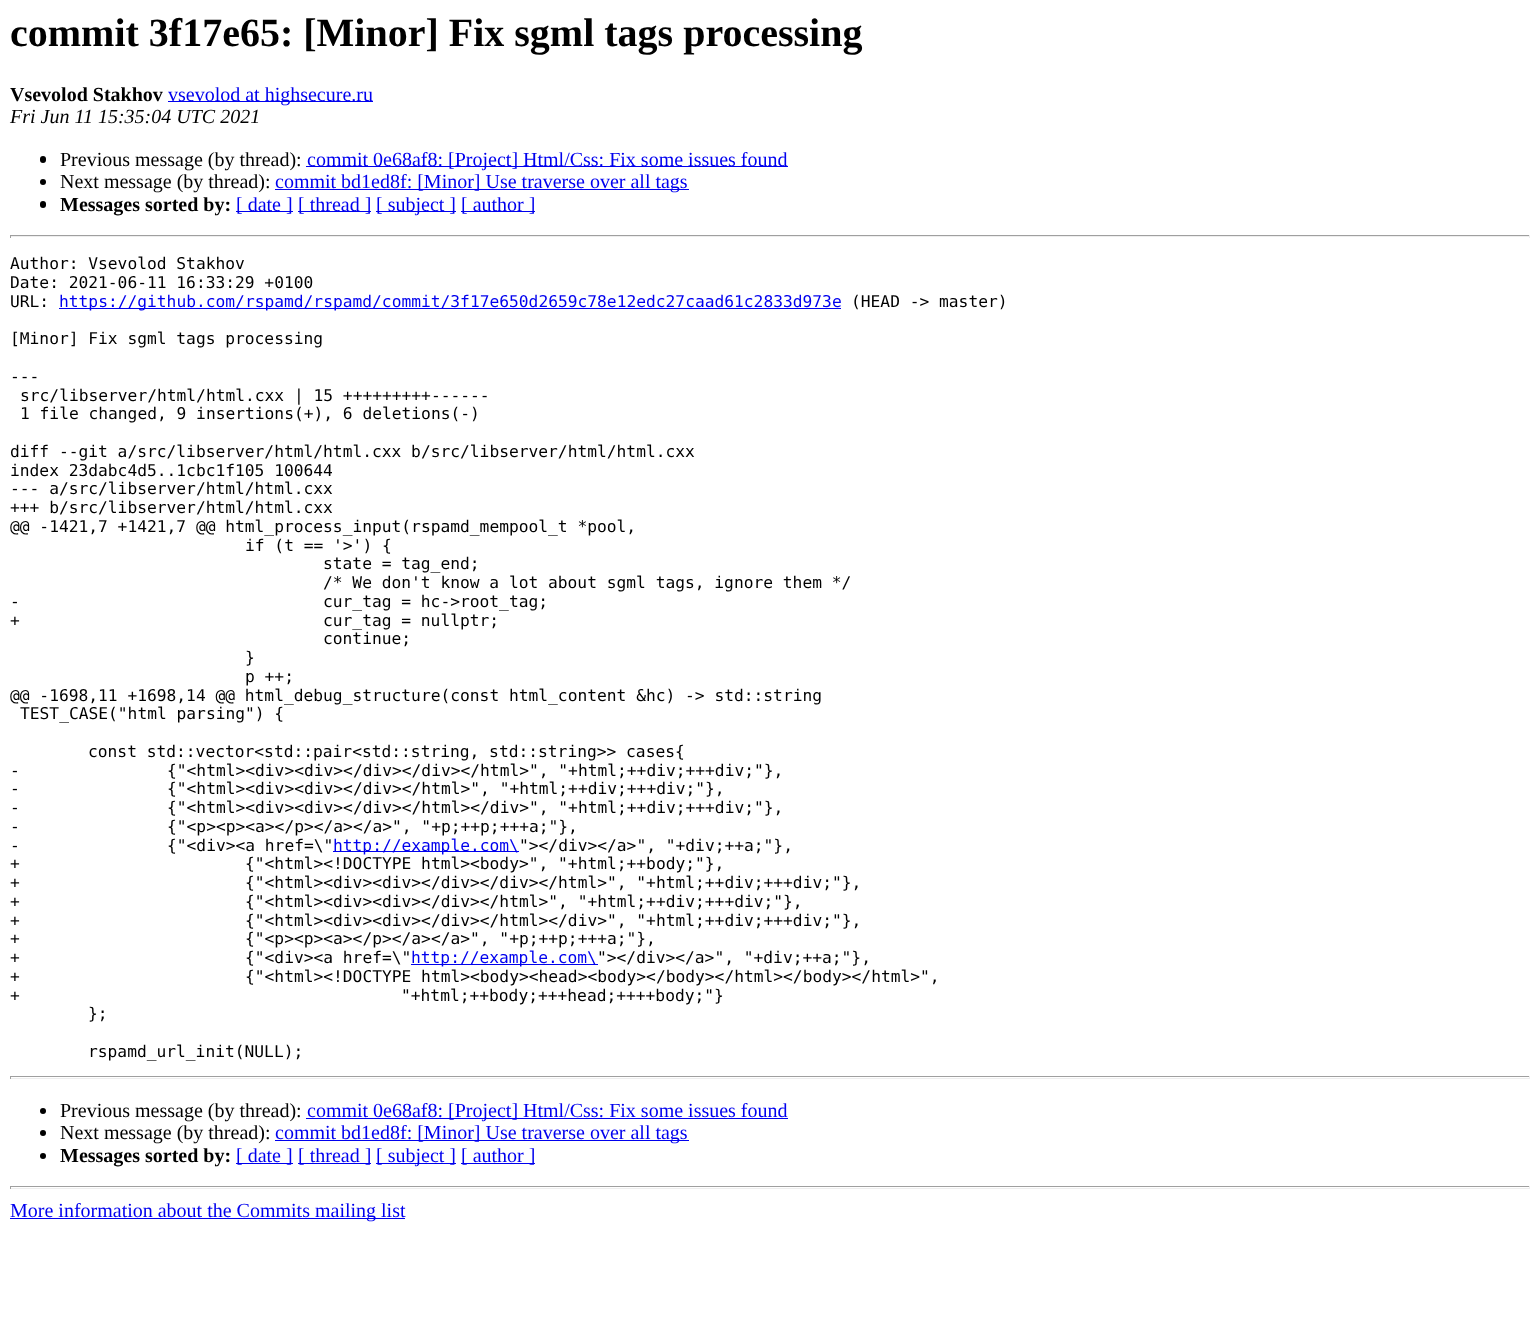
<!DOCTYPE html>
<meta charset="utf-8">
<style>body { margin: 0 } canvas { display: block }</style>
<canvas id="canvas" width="1540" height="1322"></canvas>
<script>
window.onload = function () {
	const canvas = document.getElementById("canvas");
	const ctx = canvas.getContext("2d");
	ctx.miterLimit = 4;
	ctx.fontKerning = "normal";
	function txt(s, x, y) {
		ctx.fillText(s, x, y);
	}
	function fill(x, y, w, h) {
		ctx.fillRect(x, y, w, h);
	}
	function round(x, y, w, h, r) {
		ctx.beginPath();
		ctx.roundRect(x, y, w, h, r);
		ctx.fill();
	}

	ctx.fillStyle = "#FFFFFF";
	fill(0, 0, 1540, 1322);
	ctx.fillStyle = "#0000EE";
	fill(168, 101, 205, 1);
	ctx.fillStyle = "#000000";
	round(40, 156, 6, 7, 3);
	ctx.fillStyle = "#0000EE";
	fill(306, 166, 482, 1);
	ctx.fillStyle = "#000000";
	ctx.beginPath();
	ctx.arc(43, 182, 3, 0, Math.PI * 2);
	ctx.fill();
	ctx.fillStyle = "#0000EE";
	fill(275, 189, 414, 1);
	ctx.fillStyle = "#000000";
	round(40, 201, 6, 7, 3);
	ctx.fillStyle = "#0000EE";
	fill(236, 211, 57, 1);
	fill(298, 211, 73, 1);
	fill(376, 211, 80, 1);
	fill(461, 211, 74, 1);
	ctx.fillStyle = "#9F9F9F";
	fill(10, 235, 1520, 1);
	ctx.fillStyle = "#EEEEEE";
	fill(1529, 235, 1, 3);
	fill(10, 236, 1520, 1);
	ctx.fillStyle = "#9F9F9F";
	fill(10, 235, 1, 3);
	ctx.fillStyle = "#0000EE";
	fill(59, 308, 782, 1);
	fill(333, 851, 186, 1);
	fill(411, 964, 187, 1);
	ctx.fillStyle = "#9F9F9F";
	fill(10, 1076, 1520, 1);
	ctx.fillStyle = "#EEEEEE";
	fill(1529, 1076, 1, 3);
	fill(10, 1078, 1520, 1);
	ctx.fillStyle = "#9F9F9F";
	fill(10, 1076, 1, 3);
	ctx.fillStyle = "#000000";
	ctx.beginPath();
	ctx.arc(43, 1111, 3, 0, Math.PI * 2);
	ctx.fill();
	ctx.fillStyle = "#0000EE";
	fill(306, 1118, 482, 1);
	ctx.fillStyle = "#000000";
	ctx.beginPath();
	ctx.arc(43, 1133, 3, 0, Math.PI * 2);
	ctx.fill();
	ctx.fillStyle = "#0000EE";
	fill(275, 1140, 414, 1);
	ctx.fillStyle = "#000000";
	ctx.beginPath();
	ctx.arc(43, 1156, 3, 0, Math.PI * 2);
	ctx.fill();
	ctx.fillStyle = "#0000EE";
	fill(236, 1163, 57, 1);
	fill(298, 1163, 73, 1);
	fill(376, 1163, 80, 1);
	fill(461, 1163, 74, 1);
	ctx.fillStyle = "#9F9F9F";
	fill(10, 1186, 1520, 1);
	ctx.fillStyle = "#EEEEEE";
	fill(1529, 1186, 1, 3);
	fill(10, 1188, 1520, 1);
	ctx.fillStyle = "#9F9F9F";
	fill(10, 1186, 1, 3);
	ctx.fillStyle = "#0000EE";
	fill(10, 1218, 395, 1);
	ctx.font = "bold 40px Liberation Serif";
	ctx.fillStyle = "#000000";
	txt("commit 3f17e65: [Minor] Fix sgml tags processing", 10, 46);
	ctx.font = "bold 20px Liberation Serif";
	txt("Vsevolod Stakhov", 10, 101);
	ctx.font = "20px Liberation Serif";
	ctx.fillStyle = "#0000EE";
	txt("vsevolod at highsecure.ru", 168, 101);
	ctx.font = "italic 20px Liberation Serif";
	ctx.fillStyle = "#000000";
	txt("Fri Jun 11 15:35:04 UTC 2021", 10, 123);
	ctx.font = "20px Liberation Serif";
	txt("Previous message (by thread):", 60, 166);
	ctx.fillStyle = "#0000EE";
	txt("commit 0e68af8: [Project] Html/Css: Fix some issues found", 307, 166);
	ctx.fillStyle = "#000000";
	txt("Next message (by thread):", 60, 188);
	ctx.fillStyle = "#0000EE";
	txt("commit bd1ed8f: [Minor] Use traverse over all tags", 275, 188);
	ctx.font = "bold 20px Liberation Serif";
	ctx.fillStyle = "#000000";
	txt("Messages sorted by:", 60, 211);
	ctx.font = "20px Liberation Serif";
	ctx.fillStyle = "#0000EE";
	txt("[ date ]", 236, 211);
	txt("[ thread ]", 298, 211);
	txt("[ subject ]", 376, 211);
	txt("[ author ]", 461, 211);
	ctx.font = "16.25px DejaVu Sans Mono";
	ctx.fillStyle = "#000000";
	txt("Author: Vsevolod Stakhov", 10, 269);
	txt("Date: 2021-06-11 16:33:29 +0100", 10, 288);
	txt("URL:", 10, 307);
	ctx.fillStyle = "#0000EE";
	txt("https://github.com/rspamd/rspamd/commit/3f17e650d2659c78e12edc27caad61c2833d973e", 59, 307);
	ctx.fillStyle = "#000000";
	txt("(HEAD -> master)", 851, 307);
	txt("[Minor] Fix sgml tags processing", 10, 344);
	txt("---", 10, 382);
	txt("src/libserver/html/html.cxx | 15 +++++++++------", 20, 401);
	txt("1 file changed, 9 insertions(+), 6 deletions(-)", 20, 419);
	txt("diff --git a/src/libserver/html/html.cxx b/src/libserver/html/html.cxx", 10, 457);
	txt("index 23dabc4d5..1cbc1f105 100644", 10, 476);
	txt("--- a/src/libserver/html/html.cxx", 10, 494);
	txt("+++ b/src/libserver/html/html.cxx", 10, 513);
	txt("@@ -1421,7 +1421,7 @@ html_process_input(rspamd_mempool_t *pool,", 10, 532);
	txt("if (t == '>') {", 245, 551);
	txt("state = tag_end;", 323, 569);
	txt("/* We don't know a lot about sgml tags, ignore them */", 323, 588);
	txt("-", 10, 607);
	txt("cur_tag = hc->root_tag;", 323, 607);
	txt("+", 10, 626);
	txt("cur_tag = nullptr;", 323, 626);
	txt("continue;", 323, 644);
	txt("}", 245, 663);
	txt("p ++;", 245, 682);
	txt("@@ -1698,11 +1698,14 @@ html_debug_structure(const html_content &hc) -> std::string", 10, 701);
	txt("TEST_CASE(\"html parsing\") {", 20, 719);
	txt("const std::vector<std::pair<std::string, std::string>> cases{", 88, 757);
	txt("-", 10, 776);
	txt("{\"<html><div><div><\/div><\/div><\/html>\", \"+html;++div;+++div;\"},", 167, 776);
	txt("-", 10, 794);
	txt("{\"<html><div><div><\/div><\/html>\", \"+html;++div;+++div;\"},", 167, 794);
	txt("-", 10, 813);
	txt("{\"<html><div><div><\/div><\/html><\/div>\", \"+html;++div;+++div;\"},", 167, 813);
	txt("-", 10, 832);
	txt("{\"<p><p><a><\/p><\/a><\/a>\", \"+p;++p;+++a;\"},", 167, 832);
	txt("-", 10, 851);
	txt("{\"<div><a href=\\\"", 167, 851);
	ctx.fillStyle = "#0000EE";
	txt("http://example.com\\", 333, 851);
	ctx.fillStyle = "#000000";
	txt("\"><\/div><\/a>\", \"+div;++a;\"},", 519, 851);
	txt("+", 10, 869);
	txt("{\"<html><!DOCTYPE html><body>\", \"+html;++body;\"},", 245, 869);
	txt("+", 10, 888);
	txt("{\"<html><div><div><\/div><\/div><\/html>\", \"+html;++div;+++div;\"},", 245, 888);
	txt("+", 10, 907);
	txt("{\"<html><div><div><\/div><\/html>\", \"+html;++div;+++div;\"},", 245, 907);
	txt("+", 10, 926);
	txt("{\"<html><div><div><\/div><\/html><\/div>\", \"+html;++div;+++div;\"},", 245, 926);
	txt("+", 10, 944);
	txt("{\"<p><p><a><\/p><\/a><\/a>\", \"+p;++p;+++a;\"},", 245, 944);
	txt("+", 10, 963);
	txt("{\"<div><a href=\\\"", 245, 963);
	ctx.fillStyle = "#0000EE";
	txt("http://example.com\\", 411, 963);
	ctx.fillStyle = "#000000";
	txt("\"><\/div><\/a>\", \"+div;++a;\"},", 597, 963);
	txt("+", 10, 982);
	txt("{\"<html><!DOCTYPE html><body><head><body><\/body><\/html><\/body><\/html>\",", 245, 982);
	txt("+", 10, 1001);
	txt("\"+html;++body;+++head;++++body;\"}", 401, 1001);
	txt("};", 88, 1019);
	txt("rspamd_url_init(NULL);", 88, 1057);
	ctx.font = "20px Liberation Serif";
	txt("Previous message (by thread):", 60, 1117);
	ctx.fillStyle = "#0000EE";
	txt("commit 0e68af8: [Project] Html/Css: Fix some issues found", 307, 1117);
	ctx.fillStyle = "#000000";
	txt("Next message (by thread):", 60, 1139);
	ctx.fillStyle = "#0000EE";
	txt("commit bd1ed8f: [Minor] Use traverse over all tags", 275, 1139);
	ctx.font = "bold 20px Liberation Serif";
	ctx.fillStyle = "#000000";
	txt("Messages sorted by:", 60, 1162);
	ctx.font = "20px Liberation Serif";
	ctx.fillStyle = "#0000EE";
	txt("[ date ]", 236, 1162);
	txt("[ thread ]", 298, 1162);
	txt("[ subject ]", 376, 1162);
	txt("[ author ]", 461, 1162);
	txt("More information about the Commits mailing list", 10, 1217);
};
</script>
